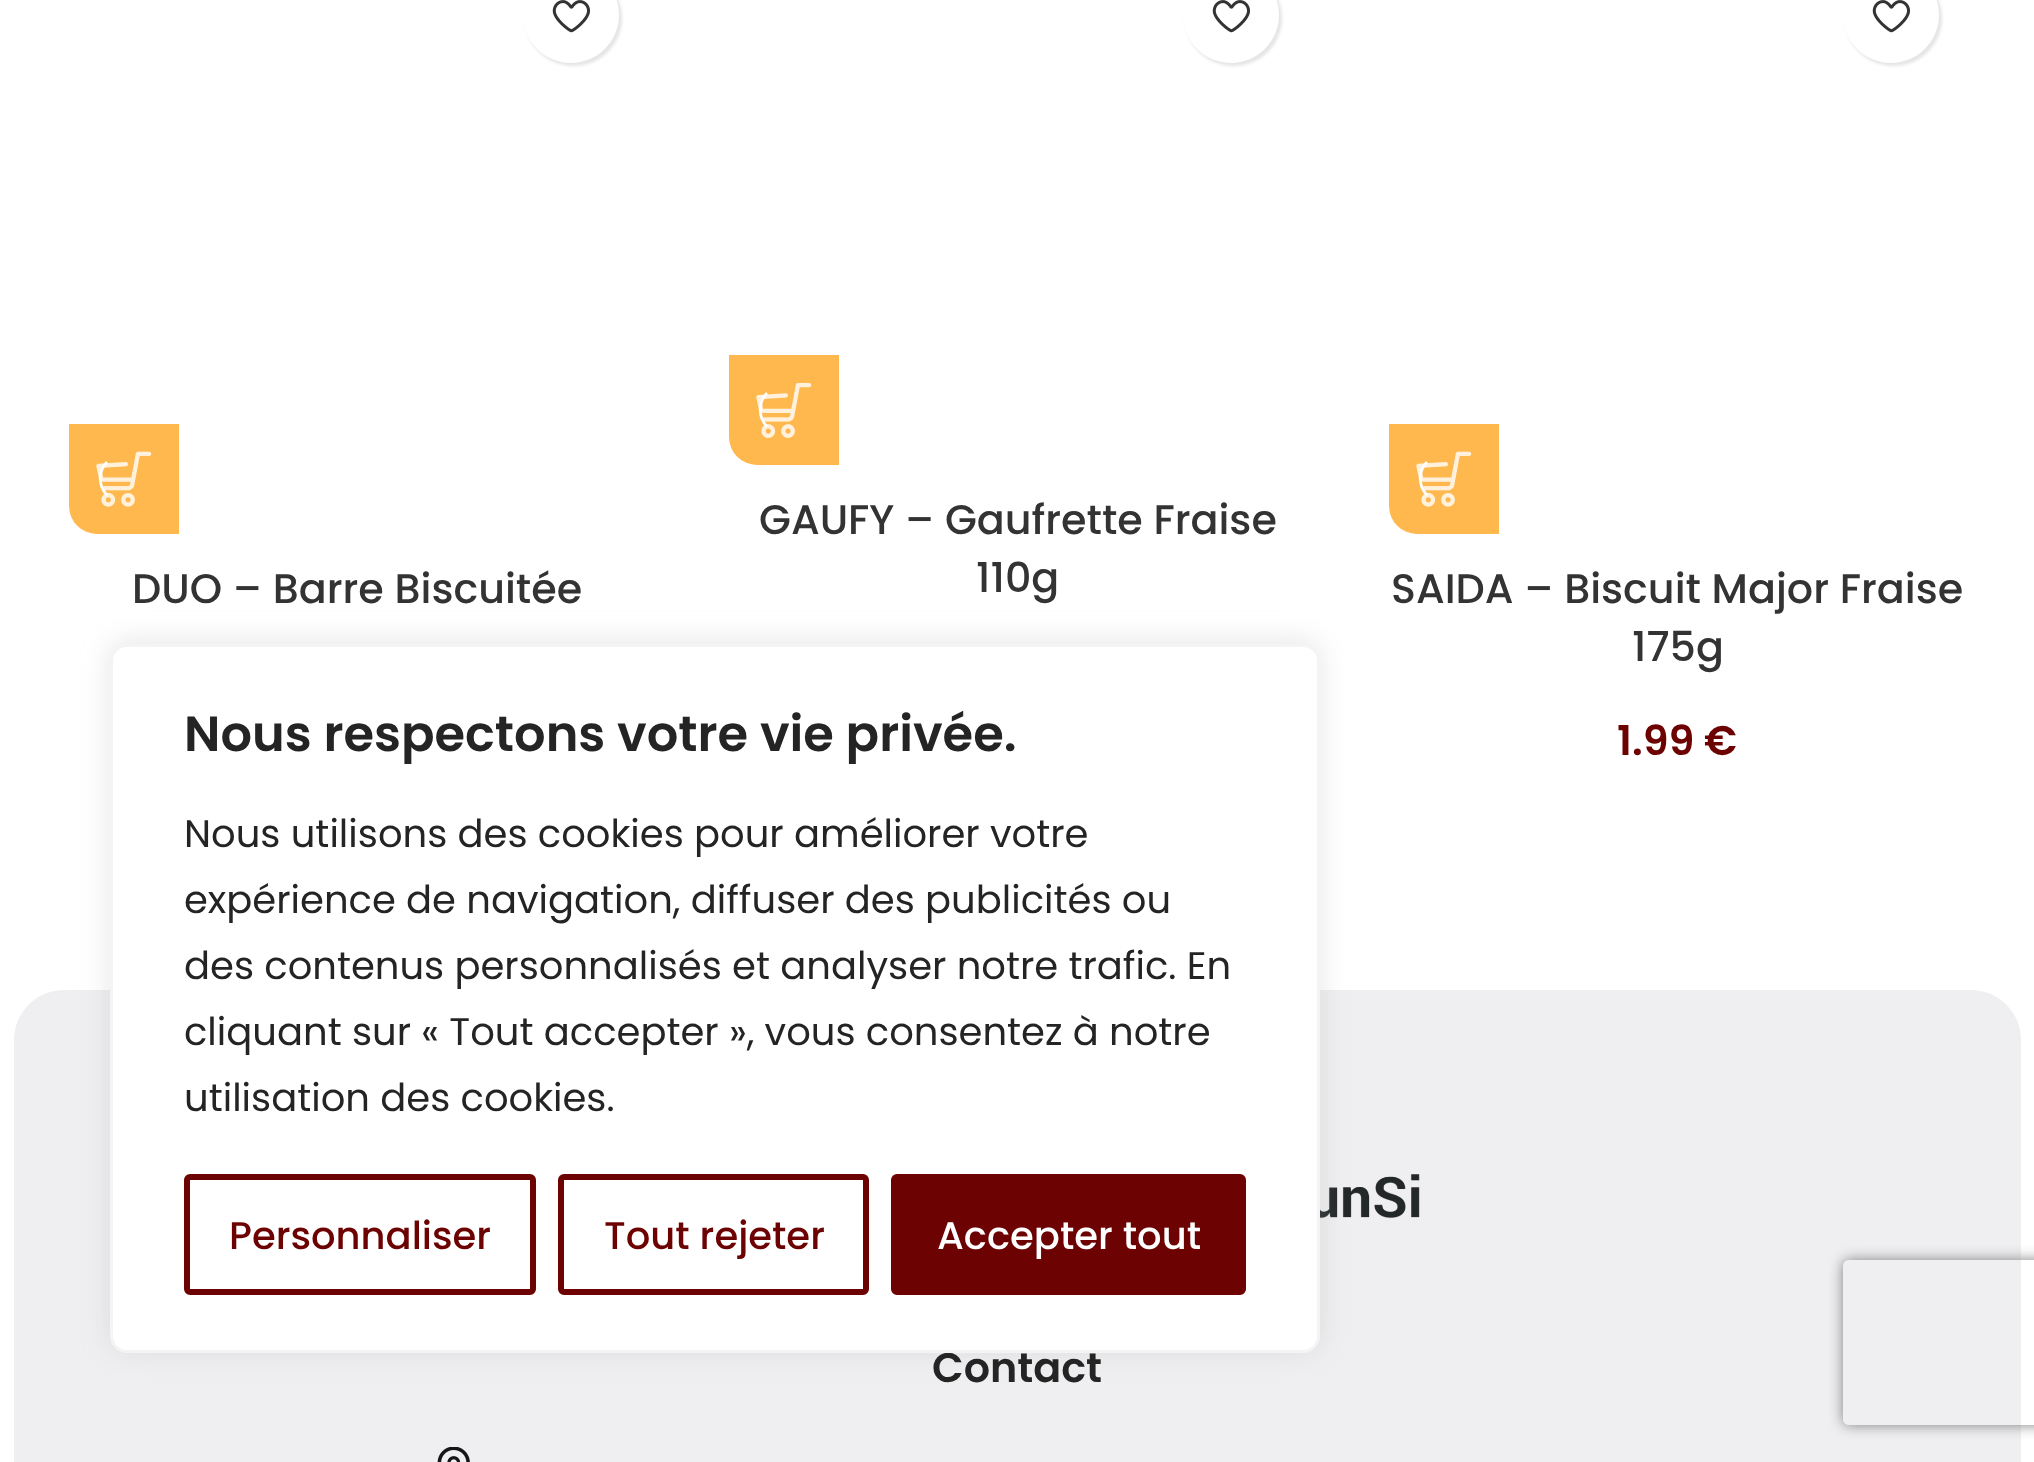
<!DOCTYPE html>
<meta charset="utf-8">
<style>body { margin: 0 } canvas { display: block }</style>
<canvas id="canvas" width="2034" height="1462"></canvas>
<img id="img1" src="img_01.png" hidden>
<img id="img2" src="img_02.png" hidden>
<img id="img3" src="img_03.png" hidden>
<img id="img4" src="img_04.png" hidden>
<img id="img5" src="img_05.png" hidden>
<script>
window.onload = function () {
	const canvas = document.getElementById("canvas");
	const ctx = canvas.getContext("2d");
	ctx.miterLimit = 4;
	ctx.fontKerning = "normal";
	function txt(s, x, y) {
		ctx.fillText(s, x, y);
	}
	function fill(x, y, w, h) {
		ctx.fillRect(x, y, w, h);
	}
	function round(x, y, w, h, r) {
		ctx.beginPath();
		ctx.roundRect(x, y, w, h, r);
		ctx.fill();
	}
	function img(id, x, y, w, h) {
		ctx.drawImage(document.getElementById(id), x, y, w, h);
	}

	ctx.fillStyle = "#FFFFFF";
	fill(0, 0, 2034, 1462);
	ctx.fillStyle = "rgba(0, 0, 0, 0.1)";
	ctx.filter = "blur(1.5px)";
	ctx.beginPath();
	ctx.roundRect(525, -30, 97, 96, 48);
	ctx.fill();
	ctx.filter = "none";
	ctx.fillStyle = "#FFFFFF";
	ctx.beginPath();
	ctx.arc(571, 15, 48, 0, Math.PI * 2);
	ctx.fill();
	img("img1", 552, 0, 38, 33);
	ctx.fillStyle = "#FEB84D";
	ctx.beginPath();
	ctx.roundRect(69, 424, 110, 110, [0, 0, 0, 28]);
	ctx.fill();
	img("img2", 96, 451, 56, 56);
	ctx.beginPath();
	ctx.moveTo(107, 495);
	ctx.bezierCurveTo(98, 486, 98, 471, 107, 462);
	ctx.strokeStyle = "#FFFFFF";
	ctx.lineWidth = 2.8;
	ctx.stroke();
	ctx.fillStyle = "rgba(0, 0, 0, 0.1)";
	ctx.filter = "blur(1.5px)";
	ctx.beginPath();
	ctx.roundRect(1185, -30, 97, 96, 48);
	ctx.fill();
	ctx.filter = "none";
	ctx.fillStyle = "#FFFFFF";
	ctx.beginPath();
	ctx.arc(1231, 15, 48, 0, Math.PI * 2);
	ctx.fill();
	img("img1", 1212, 0, 38, 33);
	ctx.fillStyle = "#FEB84D";
	ctx.beginPath();
	ctx.roundRect(729, 355, 110, 110, [0, 0, 0, 28]);
	ctx.fill();
	img("img3", 756, 382, 56, 56);
	ctx.beginPath();
	ctx.moveTo(767, 426.5);
	ctx.bezierCurveTo(758, 417.5, 758, 402, 767, 393);
	ctx.stroke();
	ctx.fillStyle = "rgba(0, 0, 0, 0.1)";
	ctx.filter = "blur(1.5px)";
	ctx.beginPath();
	ctx.roundRect(1845, -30, 97, 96, 48);
	ctx.fill();
	ctx.filter = "none";
	ctx.fillStyle = "#FFFFFF";
	ctx.beginPath();
	ctx.arc(1891, 15, 48, 0, Math.PI * 2);
	ctx.fill();
	img("img1", 1872, 0, 38, 33);
	ctx.fillStyle = "#FEB84D";
	ctx.beginPath();
	ctx.roundRect(1389, 424, 110, 110, [0, 0, 0, 28]);
	ctx.fill();
	img("img2", 1416, 451, 56, 56);
	ctx.beginPath();
	ctx.moveTo(1427, 495);
	ctx.bezierCurveTo(1418, 486, 1418, 471, 1427, 462);
	ctx.stroke();
	ctx.fillStyle = "#EFEFF1";
	round(14, 990, 2007, 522, 50);
	img("img4", 1320, 1174, 100, 45);
	img("img5", 437, 1447, 33, 15);
	ctx.fillStyle = "rgba(172, 171, 171, 0.3)";
	ctx.filter = "blur(14px)";
	ctx.beginPath();
	ctx.roundRect(110, 641, 1210, 709, 17);
	ctx.fill();
	ctx.filter = "none";
	ctx.save();
	ctx.beginPath();
	ctx.moveTo(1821, 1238);
	ctx.lineTo(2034, 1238);
	ctx.lineTo(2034, 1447);
	ctx.lineTo(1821, 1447);
	ctx.closePath();
	ctx.moveTo(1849, 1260);
	ctx.lineTo(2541, 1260);
	ctx.bezierCurveTo(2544.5, 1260, 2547, 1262.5, 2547, 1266);
	ctx.lineTo(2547, 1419);
	ctx.bezierCurveTo(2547, 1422.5, 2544.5, 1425, 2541, 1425);
	ctx.lineTo(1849, 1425);
	ctx.bezierCurveTo(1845.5, 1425, 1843, 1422.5, 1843, 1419);
	ctx.lineTo(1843, 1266);
	ctx.bezierCurveTo(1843, 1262.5, 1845.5, 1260, 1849, 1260);
	ctx.closePath();
	ctx.clip("evenodd");
	ctx.fillStyle = "#808080";
	ctx.filter = "blur(7px)";
	ctx.beginPath();
	ctx.roundRect(1843, 1260, 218, 165, 6);
	ctx.fill();
	ctx.filter = "none";
	ctx.restore();
	ctx.font = "500 41.25px Poppins";
	ctx.fillStyle = "#333333";
	txt("DUO – Barre Biscuitée", 132, 603);
	txt("GAUFY – Gaufrette Fraise", 759, 534);
	txt("110g", 976, 592);
	txt("SAIDA – Biscuit Major Fraise", 1391, 603);
	txt("175g", 1632, 661);
	ctx.font = "600 41.25px Poppins";
	ctx.fillStyle = "#6D0202";
	txt("1.99 €", 1617, 755);
	ctx.fillStyle = "#242424";
	txt("Contact", 932, 1382);
	ctx.fillStyle = "#FFFFFF";
	ctx.beginPath();
	ctx.roundRect(111.5, 645.5, 1207, 706, 15.5);
	ctx.fill();
	ctx.strokeStyle = "#F4F4F4";
	ctx.lineWidth = 3;
	ctx.stroke();
	ctx.font = "600 49.5px Poppins";
	ctx.fillStyle = "#242424";
	txt("Nous respectons votre vie privée.", 184, 751);
	ctx.font = "38.5px Poppins";
	txt("Nous utilisons des cookies pour améliorer votre", 184, 847);
	txt("expérience de navigation, diffuser des publicités ou", 184, 913);
	txt("des contenus personnalisés et analyser notre trafic. En", 184, 979);
	txt("cliquant sur « Tout accepter », vous consentez à notre", 184, 1045);
	txt("utilisation des cookies.", 184, 1111);
	ctx.beginPath();
	ctx.roundRect(187, 1177, 346, 115, 3);
	ctx.strokeStyle = "#6C0302";
	ctx.lineWidth = 6;
	ctx.stroke();
	ctx.font = "500 38.5px Poppins";
	ctx.fillStyle = "#6D0202";
	txt("Personnaliser", 229, 1249);
	ctx.beginPath();
	ctx.roundRect(561, 1177, 305, 115, 3);
	ctx.stroke();
	txt("Tout rejeter", 604, 1249);
	ctx.fillStyle = "#6C0302";
	ctx.beginPath();
	ctx.roundRect(894, 1177, 349, 115, 3);
	ctx.fill();
	ctx.stroke();
	ctx.fillStyle = "#FFFFFF";
	txt("Accepter tout", 937, 1249);
};
</script>
